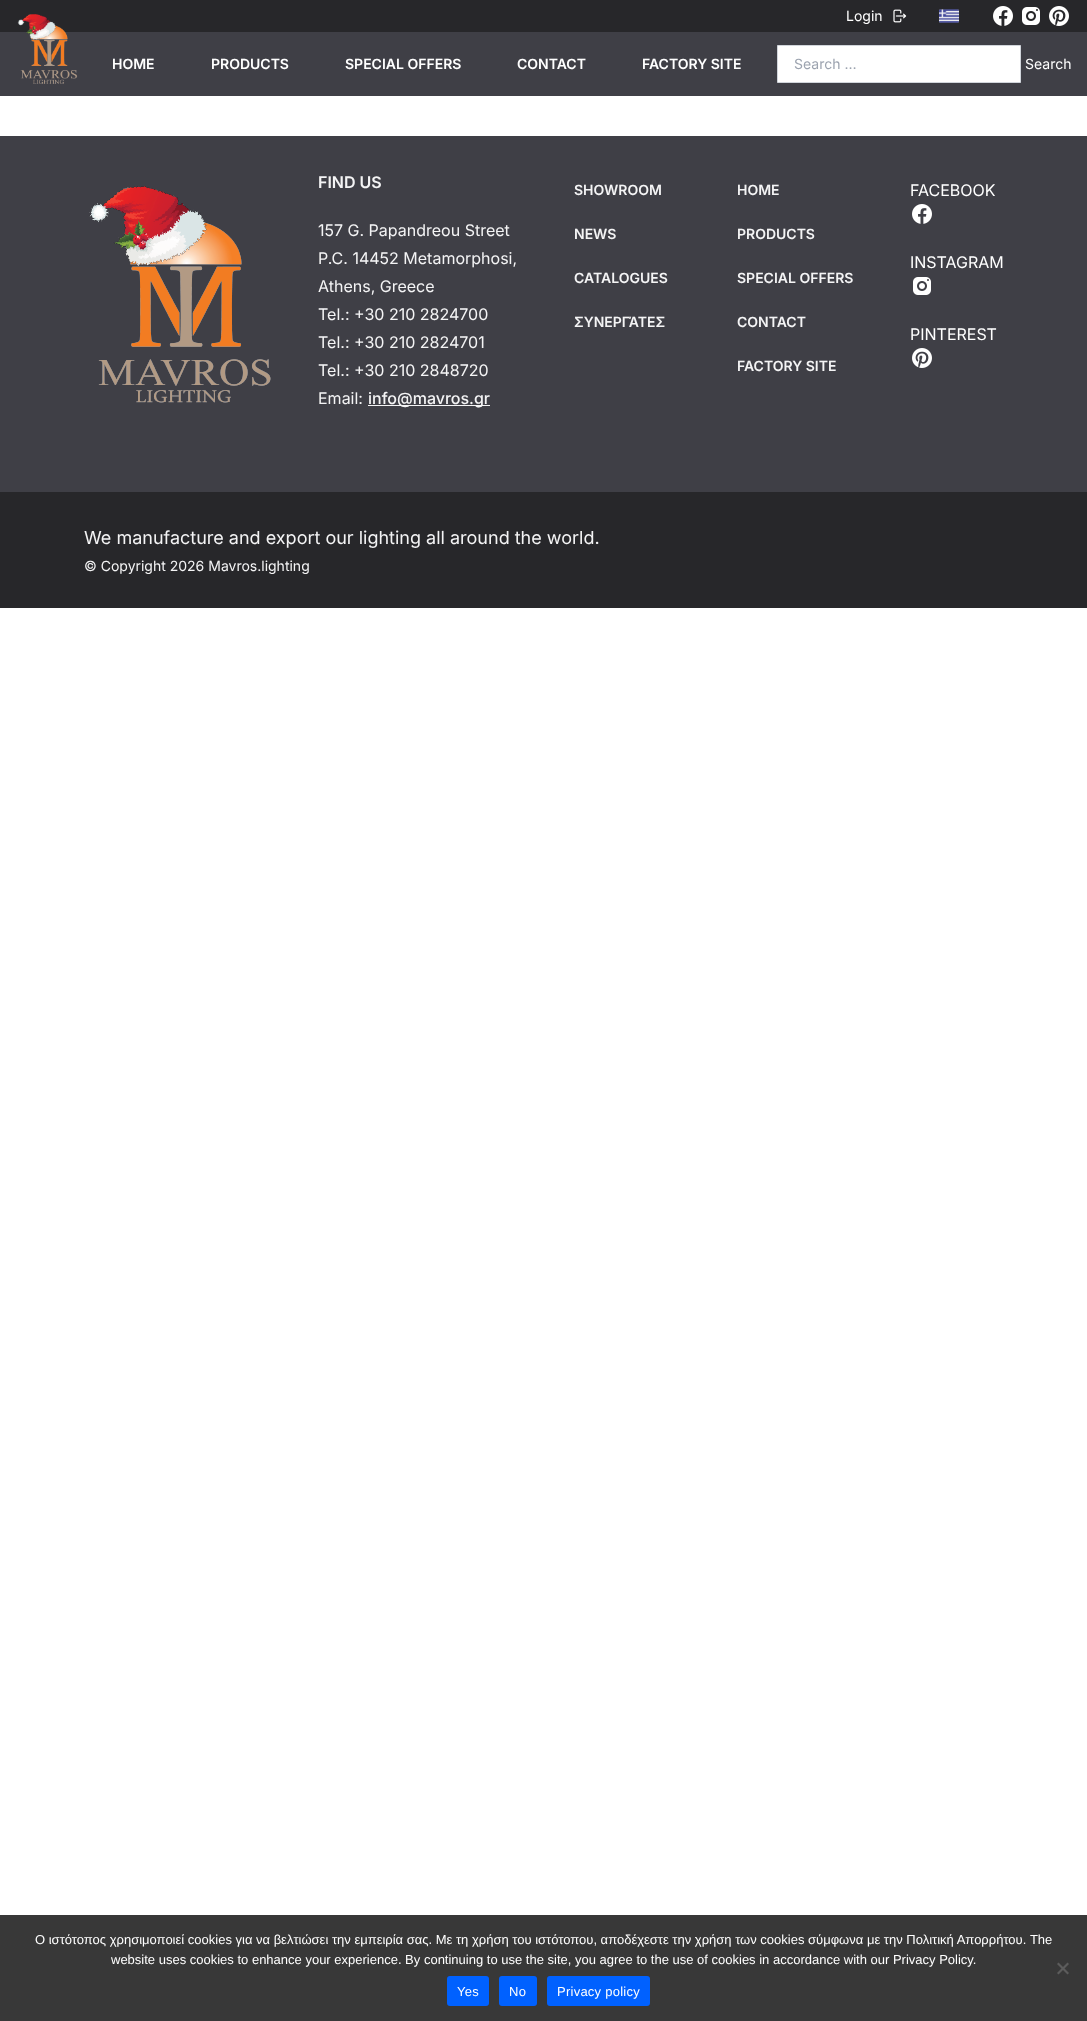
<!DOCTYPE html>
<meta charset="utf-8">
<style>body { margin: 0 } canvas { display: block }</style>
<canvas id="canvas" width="1087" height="2021"></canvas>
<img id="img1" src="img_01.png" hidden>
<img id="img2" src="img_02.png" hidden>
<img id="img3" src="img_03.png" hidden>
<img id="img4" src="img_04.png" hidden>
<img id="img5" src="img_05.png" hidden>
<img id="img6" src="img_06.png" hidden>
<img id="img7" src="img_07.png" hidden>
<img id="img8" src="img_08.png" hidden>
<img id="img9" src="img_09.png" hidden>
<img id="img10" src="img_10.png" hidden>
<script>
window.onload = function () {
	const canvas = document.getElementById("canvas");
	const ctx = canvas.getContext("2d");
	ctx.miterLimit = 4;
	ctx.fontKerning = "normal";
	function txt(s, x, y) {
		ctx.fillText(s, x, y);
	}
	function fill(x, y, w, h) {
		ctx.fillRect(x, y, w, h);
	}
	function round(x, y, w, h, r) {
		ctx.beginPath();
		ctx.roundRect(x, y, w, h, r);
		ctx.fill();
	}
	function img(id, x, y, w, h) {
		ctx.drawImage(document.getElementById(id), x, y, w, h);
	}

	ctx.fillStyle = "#FFFFFF";
	fill(0, 0, 1087, 2021);
	ctx.fillStyle = "#27272A";
	fill(0, 0, 1087, 32);
	img("img1", 893, 9, 14, 14);
	img("img2", 939, 9, 20, 14);
	img("img3", 993, 6, 20, 20);
	img("img4", 1022, 7, 18, 18);
	img("img5", 1049, 6, 20, 20);
	ctx.fillStyle = "#3F3F46";
	fill(0, 32, 1087, 64);
	img("img6", 17, 14, 61, 70);
	ctx.fillStyle = "#FFFFFF";
	ctx.beginPath();
	ctx.rect(777.5, 45.5, 243, 37);
	ctx.fill();
	ctx.strokeStyle = "#D1D5DB";
	ctx.stroke();
	ctx.fillStyle = "#3F3F46";
	fill(0, 136, 1087, 356);
	img("img7", 89, 186, 182, 217);
	ctx.fillStyle = "#F4F4F5";
	fill(368, 405, 122, 1);
	img("img8", 912, 204, 20, 20);
	img("img9", 913, 277, 18, 18);
	img("img10", 912, 348, 20, 20);
	ctx.fillStyle = "#27272A";
	fill(0, 492, 1087, 116);
	ctx.fillStyle = "#383838";
	fill(0, 1915, 1087, 106);
	ctx.fillStyle = "#5C5C5C";
	ctx.beginPath();
	ctx.moveTo(1067.5, 1962.5);
	ctx.lineTo(1069, 1964);
	ctx.lineTo(1058.5, 1974.5);
	ctx.lineTo(1057, 1973);
	ctx.closePath();
	ctx.fill();
	ctx.beginPath();
	ctx.moveTo(1057, 1964);
	ctx.lineTo(1058.5, 1962.5);
	ctx.lineTo(1069, 1973);
	ctx.lineTo(1067.5, 1974.5);
	ctx.closePath();
	ctx.fill();
	ctx.fillStyle = "#0061FF";
	round(447, 1976, 42, 30, 3);
	round(499, 1976, 38, 30, 3);
	round(547, 1976, 103, 30, 3);
	ctx.font = "14px Inter";
	ctx.fillStyle = "#FFFFFF";
	txt("Login", 846, 21);
	ctx.font = "600 14px Inter";
	txt("HOME", 112, 69);
	txt("PRODUCTS", 211, 69);
	txt("SPECIAL OFFERS", 345, 69);
	txt("CONTACT", 517, 69);
	txt("FACTORY SITE", 642, 69);
	ctx.font = "14px Inter";
	ctx.fillStyle = "#9CA3AF";
	txt("Search …", 794, 69);
	ctx.fillStyle = "#FFFFFF";
	txt("Search", 1025, 69);
	ctx.font = "600 16px Inter";
	ctx.fillStyle = "#F4F4F5";
	txt("FIND US", 318, 188);
	ctx.font = "16px Inter";
	txt("157 G. Papandreou Street", 318, 236);
	txt("P.C. 14452 Metamorphosi,", 318, 264);
	txt("Athens, Greece", 318, 292);
	txt("Tel.: +30 210 2824700", 318, 320);
	txt("Tel.: +30 210 2824701", 318, 348);
	txt("Tel.: +30 210 2848720", 318, 376);
	txt("Email:", 318, 404);
	ctx.font = "500 16px Inter";
	txt("info@mavros.gr", 368, 404);
	ctx.font = "600 14px Inter";
	txt("SHOWROOM", 574, 195);
	txt("NEWS", 574, 239);
	txt("CATALOGUES", 574, 283);
	txt("ΣΥΝΕΡΓΆΤΕΣ", 574, 327);
	txt("HOME", 737, 195);
	txt("PRODUCTS", 737, 239);
	txt("SPECIAL OFFERS", 737, 283);
	txt("CONTACT", 737, 327);
	txt("FACTORY SITE", 737, 371);
	ctx.font = "16px Inter";
	ctx.fillStyle = "#FFFFFF";
	txt("FACEBOOK", 910, 196);
	txt("INSTAGRAM", 910, 268);
	txt("PINTEREST", 910, 340);
	ctx.font = "18px Inter";
	ctx.fillStyle = "#F4F4F5";
	txt("We manufacture and export our lighting all around the world.", 84, 544);
	ctx.font = "14px Inter";
	txt("© Copyright 2026 Mavros.lighting", 84, 571);
	ctx.font = "13px Liberation Sans";
	ctx.fillStyle = "#FFFFFF";
	txt("Ο ιστότοπος χρησιμοποιεί cookies για να βελτιώσει την εμπειρία σας. Με τη χρήση του ιστότοπου, αποδέχεστε την χρήση των cookies σύμφωνα με την Πολιτική Απορρήτου. The", 35, 1944);
	txt("website uses cookies to enhance your experience. By continuing to use the site, you agree to the use of cookies in accordance with our Privacy Policy.", 111, 1964);
	ctx.letterSpacing = "0.25px";
	txt("Yes", 457, 1996);
	txt("No", 509, 1996);
	txt("Privacy policy", 557, 1996);
};
</script>
